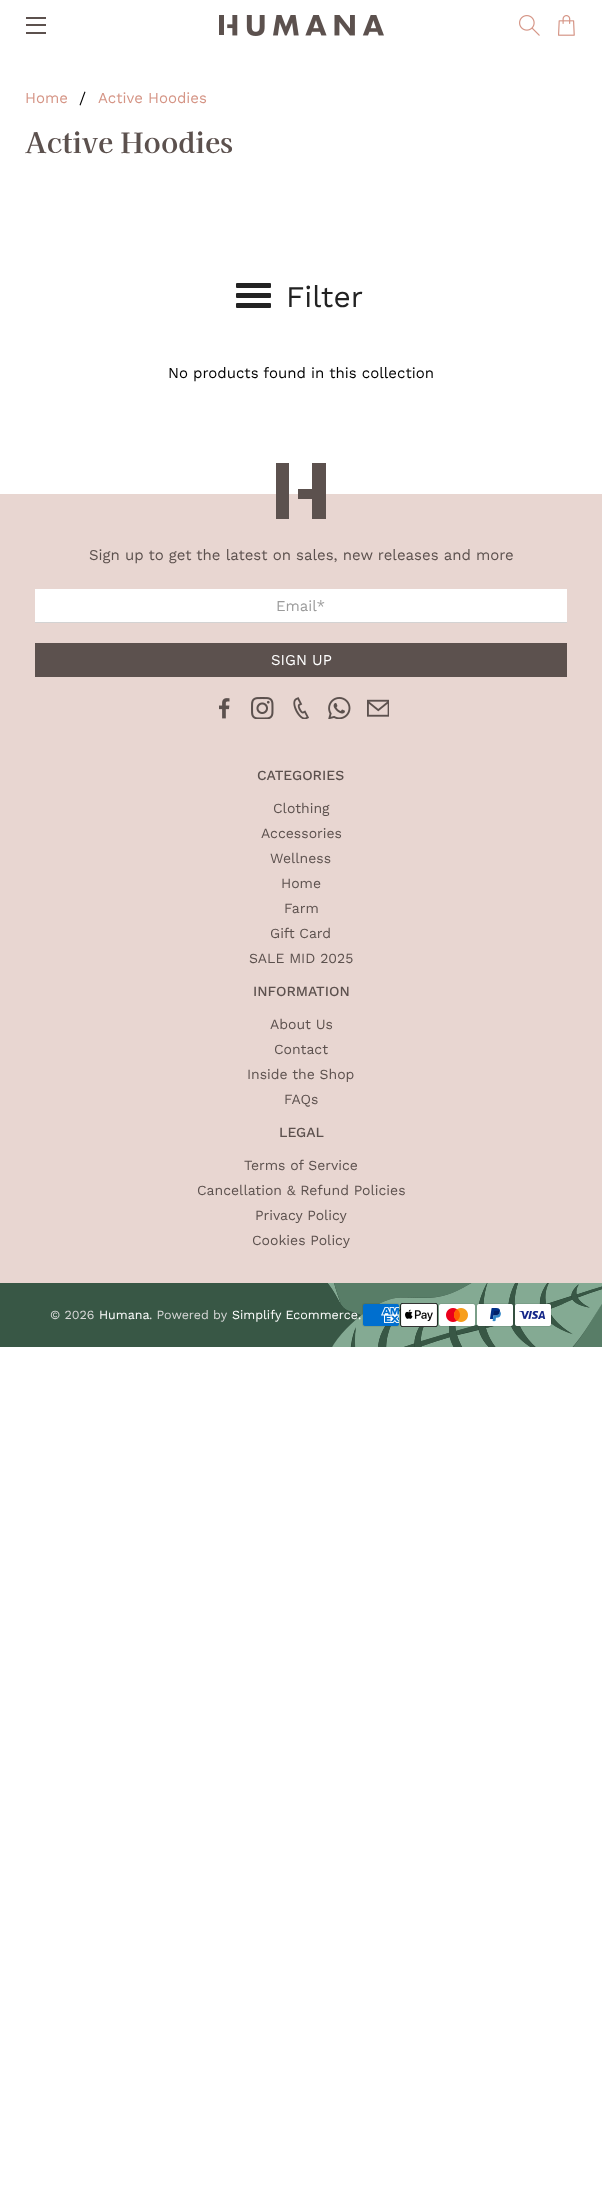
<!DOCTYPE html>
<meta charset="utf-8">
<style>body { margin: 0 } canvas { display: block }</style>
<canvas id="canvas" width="602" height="2199"></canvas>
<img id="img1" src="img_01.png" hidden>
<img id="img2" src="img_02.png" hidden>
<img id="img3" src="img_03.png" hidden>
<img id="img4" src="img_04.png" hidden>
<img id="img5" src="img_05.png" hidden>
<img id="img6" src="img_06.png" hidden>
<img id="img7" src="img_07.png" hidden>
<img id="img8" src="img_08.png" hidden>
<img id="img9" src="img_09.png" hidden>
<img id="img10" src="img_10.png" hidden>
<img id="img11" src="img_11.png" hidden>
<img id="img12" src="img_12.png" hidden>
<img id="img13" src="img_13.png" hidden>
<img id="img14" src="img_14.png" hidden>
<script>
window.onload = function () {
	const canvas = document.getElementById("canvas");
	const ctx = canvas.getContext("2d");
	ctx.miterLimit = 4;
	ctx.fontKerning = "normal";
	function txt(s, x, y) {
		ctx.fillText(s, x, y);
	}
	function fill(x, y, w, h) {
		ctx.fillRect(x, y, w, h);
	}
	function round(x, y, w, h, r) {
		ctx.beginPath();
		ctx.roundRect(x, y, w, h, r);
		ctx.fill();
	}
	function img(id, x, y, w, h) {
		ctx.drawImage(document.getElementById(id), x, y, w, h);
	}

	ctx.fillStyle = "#FFFFFF";
	fill(0, 0, 602, 2199);
	ctx.fillStyle = "#5C514E";
	fill(26, 17, 20, 2);
	fill(26, 24, 20, 2);
	fill(26, 32, 20, 2);
	img("img1", 219, 15, 165, 21);
	img("img2", 519, 15, 21, 21);
	img("img3", 558, 15, 17, 21);
	ctx.fillStyle = "#000000";
	ctx.beginPath();
	ctx.moveTo(79.5, 105);
	ctx.lineTo(84.5, 91.5);
	ctx.lineTo(85.5, 92);
	ctx.lineTo(80.5, 105.5);
	ctx.closePath();
	ctx.fill();
	ctx.fillStyle = "#222222";
	round(236, 293, 35, 5, 1);
	round(236, 283, 35, 5, 1);
	round(236, 303, 35, 5, 1);
	ctx.fillStyle = "#E8D6D1";
	fill(0, 494, 602, 789);
	ctx.fillStyle = "#5C514E";
	fill(276, 463, 13, 56);
	ctx.beginPath();
	ctx.moveTo(312, 489);
	ctx.lineTo(298, 489);
	ctx.lineTo(298, 499);
	ctx.lineTo(312, 499);
	ctx.lineTo(312, 519);
	ctx.lineTo(326, 519);
	ctx.lineTo(326, 463);
	ctx.lineTo(312, 463);
	ctx.closePath();
	ctx.fill();
	ctx.fillStyle = "#FFFFFF";
	fill(35, 589, 532, 33);
	ctx.fillStyle = "#D3D3D3";
	fill(35, 622, 532, 1);
	ctx.fillStyle = "#5C514E";
	fill(35, 643, 532, 34);
	img("img4", 219, 698, 11, 21);
	img("img5", 251, 697, 23, 22);
	img("img6", 293, 697, 16, 22);
	img("img7", 328, 697, 23, 22);
	img("img8", 367, 699, 22, 18);
	img("img9", 0, 1283, 602, 64);
	img("img10", 362, 1303, 38, 24);
	img("img11", 400, 1303, 38, 24);
	img("img12", 438, 1303, 38, 24);
	img("img13", 476, 1303, 38, 24);
	img("img14", 514, 1303, 38, 24);
	ctx.font = "15px Work Sans";
	ctx.fillStyle = "#D59586";
	txt("Home", 25, 103);
	txt("Active Hoodies", 98, 103);
	ctx.font = "bold 28px Kaisei Decol";
	ctx.fillStyle = "#5C514E";
	txt("Active Hoodies", 25, 153);
	ctx.font = "30px Work Sans";
	ctx.fillStyle = "#222222";
	txt("Filter", 286, 307);
	ctx.font = "15px Work Sans";
	ctx.fillStyle = "#000000";
	txt("No products found in this collection", 168, 378);
	ctx.fillStyle = "#5C514E";
	txt("Sign up to get the latest on sales, new releases and more", 89, 560);
	ctx.fillStyle = "#9B9B9B";
	txt("Email*", 276, 611);
	ctx.fillStyle = "#FFFFFF";
	txt("SIGN UP", 271, 665);
	ctx.font = "500 14px Work Sans";
	ctx.fillStyle = "#5C514E";
	txt("CATEGORIES", 257, 780);
	ctx.font = "14px Work Sans";
	txt("Clothing", 273, 813);
	txt("Accessories", 261, 838);
	txt("Wellness", 270, 863);
	txt("Home", 281, 888);
	txt("Farm", 284, 913);
	txt("Gift Card", 270, 938);
	txt("SALE MID 2025", 249, 963);
	ctx.font = "500 14px Work Sans";
	txt("INFORMATION", 253, 996);
	ctx.font = "14px Work Sans";
	txt("About Us", 270, 1029);
	txt("Contact", 274, 1054);
	txt("Inside the Shop", 247, 1079);
	txt("FAQs", 284, 1104);
	ctx.font = "500 14px Work Sans";
	txt("LEGAL", 279, 1137);
	ctx.font = "14px Work Sans";
	txt("Terms of Service", 244, 1170);
	txt("Cancellation & Refund Policies", 197, 1195);
	txt("Privacy Policy", 255, 1220);
	txt("Cookies Policy", 252, 1245);
	ctx.font = "12.5px Work Sans";
	ctx.fillStyle = "#D8D8D8";
	txt("© 2026", 50, 1319);
	ctx.fillStyle = "#FFFFFF";
	txt("Humana", 99, 1319);
	ctx.fillStyle = "#D8D8D8";
	txt(". Powered by", 149, 1319);
	ctx.fillStyle = "#FFFFFF";
	txt("Simplify Ecommerce.", 232, 1319);
};
</script>
